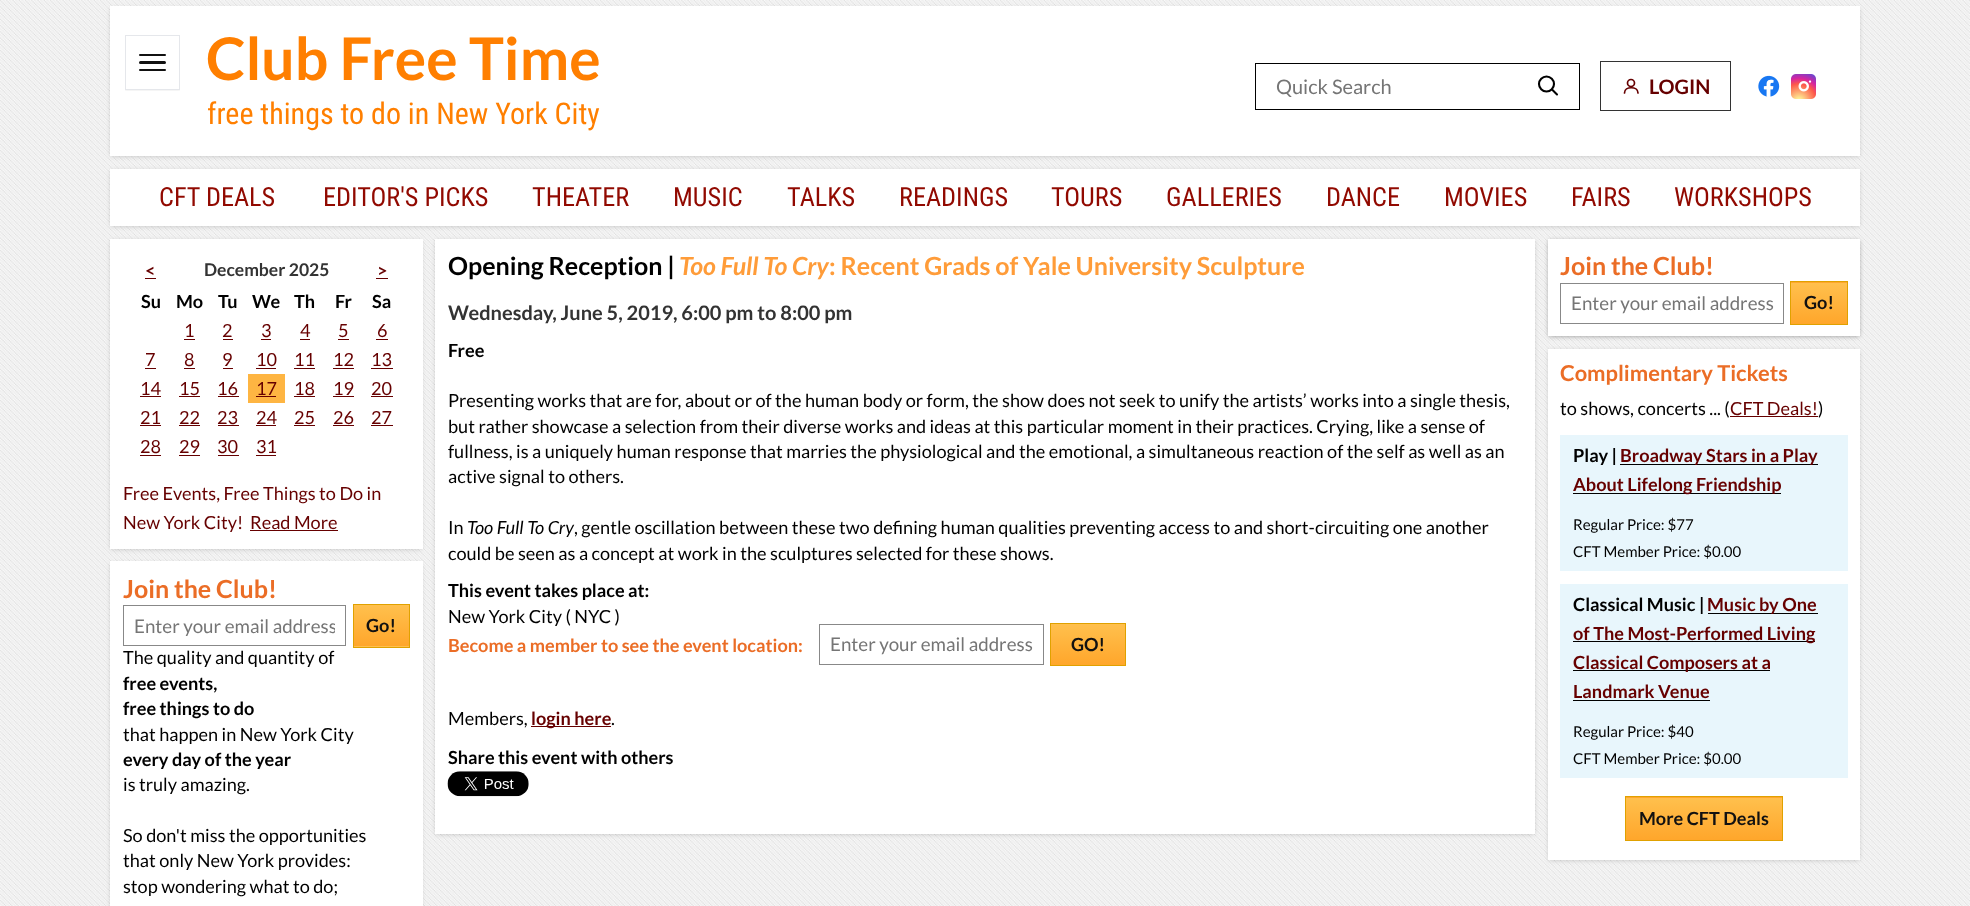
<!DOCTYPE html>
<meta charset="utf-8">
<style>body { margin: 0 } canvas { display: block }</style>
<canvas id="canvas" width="1970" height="906"></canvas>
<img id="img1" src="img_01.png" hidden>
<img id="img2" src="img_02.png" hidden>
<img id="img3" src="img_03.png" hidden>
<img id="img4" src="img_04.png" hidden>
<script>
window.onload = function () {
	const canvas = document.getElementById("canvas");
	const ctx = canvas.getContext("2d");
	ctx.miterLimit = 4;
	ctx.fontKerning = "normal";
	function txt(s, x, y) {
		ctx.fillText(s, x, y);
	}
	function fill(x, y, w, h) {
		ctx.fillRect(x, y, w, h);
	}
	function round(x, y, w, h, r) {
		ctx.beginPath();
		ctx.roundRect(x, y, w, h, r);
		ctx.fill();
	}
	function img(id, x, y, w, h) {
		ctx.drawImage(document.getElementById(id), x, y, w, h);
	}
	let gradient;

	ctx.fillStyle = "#FFFFFF";
	fill(0, 0, 1970, 906);
	img("img1", 0, 0, 1970, 906);
	ctx.fillStyle = "rgba(0, 0, 0, 0.2)";
	ctx.filter = "blur(2.5px)";
	ctx.beginPath();
	ctx.rect(111, 9, 1748, 147);
	ctx.fill();
	ctx.filter = "none";
	ctx.fillStyle = "#FFFFFF";
	fill(110, 6, 1750, 150);
	ctx.save();
	ctx.beginPath();
	ctx.rect(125, 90, 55, 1);
	ctx.clip();
	ctx.fillStyle = "rgba(0, 0, 0, 0.06)";
	ctx.filter = "blur(1px)";
	ctx.beginPath();
	ctx.rect(125, 36, 55, 55);
	ctx.fill();
	ctx.filter = "none";
	ctx.restore();
	ctx.strokeStyle = "#E5E7EB";
	ctx.strokeRect(125.5, 35.5, 54, 54);
	ctx.fillStyle = "#111111";
	round(139, 54, 27, 2, 1);
	round(139, 61, 27, 3, 1.5);
	round(139, 69, 27, 2, 1);
	ctx.strokeStyle = "#000000";
	ctx.strokeRect(1255.5, 63.5, 324, 46);
	ctx.beginPath();
	ctx.arc(1546.5, 84, 7.5, 0, Math.PI * 2);
	ctx.lineWidth = 2.1;
	ctx.stroke();
	ctx.beginPath();
	ctx.moveTo(1552, 89.5);
	ctx.lineTo(1557, 94.5);
	ctx.lineCap = "round";
	ctx.lineJoin = "round";
	ctx.stroke();
	ctx.strokeStyle = "#333333";
	ctx.lineWidth = 1;
	ctx.lineJoin = "miter";
	ctx.strokeRect(1600.5, 61.5, 130, 49);
	ctx.beginPath();
	ctx.arc(1631, 83, 3.5, 0, Math.PI * 2);
	ctx.strokeStyle = "#660000";
	ctx.lineWidth = 1.7;
	ctx.stroke();
	ctx.beginPath();
	ctx.moveTo(1624.5, 93);
	ctx.bezierCurveTo(1624.5, 86, 1638, 86, 1638, 93);
	ctx.lineJoin = "round";
	ctx.stroke();
	img("img2", 1758, 75, 22, 22);
	img("img3", 1791, 74, 25, 25);
	ctx.fillStyle = "rgba(0, 0, 0, 0.2)";
	ctx.filter = "blur(2.5px)";
	ctx.beginPath();
	ctx.rect(111, 171, 1748, 55);
	ctx.fill();
	ctx.filter = "none";
	ctx.fillStyle = "#FFFFFF";
	fill(110, 169, 1750, 57);
	ctx.fillStyle = "rgba(0, 0, 0, 0.2)";
	ctx.filter = "blur(2.5px)";
	ctx.beginPath();
	ctx.rect(111, 241, 310, 308);
	ctx.fill();
	ctx.filter = "none";
	ctx.fillStyle = "#FFFFFF";
	fill(110, 239, 313, 310);
	ctx.fillStyle = "#660000";
	fill(145, 278, 11, 1);
	fill(376, 278, 12, 1);
	fill(184, 339, 11, 1);
	fill(223, 339, 10, 1);
	fill(261, 339, 10, 1);
	fill(300, 339, 10, 1);
	fill(338, 339, 11, 1);
	fill(376, 339, 12, 1);
	fill(145, 368, 11, 1);
	fill(184, 368, 11, 1);
	fill(223, 368, 10, 1);
	fill(256, 368, 20, 1);
	fill(294, 368, 21, 1);
	fill(333, 368, 21, 1);
	fill(371, 368, 22, 1);
	fill(140, 396, 21, 1);
	fill(179, 396, 21, 1);
	fill(218, 396, 21, 1);
	ctx.fillStyle = "#FEB542";
	fill(248, 374, 37, 29);
	ctx.fillStyle = "#660000";
	fill(256, 396, 20, 1);
	fill(294, 396, 21, 1);
	fill(333, 396, 21, 1);
	fill(371, 396, 22, 1);
	fill(140, 425, 21, 1);
	fill(179, 425, 21, 1);
	fill(218, 425, 21, 1);
	fill(256, 425, 20, 1);
	fill(294, 425, 21, 1);
	fill(333, 425, 21, 1);
	fill(371, 425, 22, 1);
	fill(140, 455, 21, 1);
	fill(179, 455, 21, 1);
	fill(218, 455, 21, 1);
	fill(256, 455, 20, 1);
	fill(250, 530, 88, 1);
	ctx.fillStyle = "rgba(0, 0, 0, 0.2)";
	ctx.filter = "blur(2.5px)";
	ctx.beginPath();
	ctx.rect(111, 564, 310, 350);
	ctx.fill();
	ctx.filter = "none";
	ctx.fillStyle = "#FFFFFF";
	fill(110, 561, 313, 345);
	ctx.strokeStyle = "#888888";
	ctx.lineWidth = 1;
	ctx.lineJoin = "miter";
	ctx.strokeRect(123.5, 605.5, 222, 40);
	gradient = ctx.createLinearGradient(381, 605, 381, 646);
	gradient.addColorStop(0, "#FFC04D");
	gradient.addColorStop(1, "#FFA62B");
	ctx.fillStyle = gradient;
	fill(354, 605, 55, 41);
	gradient = ctx.createLinearGradient(381, 646, 381, 688);
	gradient.addColorStop(0, "#FFC04D");
	gradient.addColorStop(1, "#FFA62B");
	ctx.fillStyle = gradient;
	fill(353, 646, 57, 1);
	ctx.strokeStyle = "#E0A100";
	ctx.strokeRect(353.5, 604.5, 56, 43);
	ctx.fillStyle = "rgba(0, 0, 0, 0.2)";
	ctx.filter = "blur(2.5px)";
	ctx.beginPath();
	ctx.rect(436, 241, 1098, 593);
	ctx.fill();
	ctx.filter = "none";
	ctx.fillStyle = "#FFFFFF";
	fill(435, 239, 1100, 595);
	ctx.strokeStyle = "#888888";
	ctx.strokeRect(819.5, 624.5, 224, 40);
	gradient = ctx.createLinearGradient(1088, 624, 1088, 665);
	gradient.addColorStop(0, "#FFC04D");
	gradient.addColorStop(1, "#FFA62B");
	ctx.fillStyle = gradient;
	fill(1051, 624, 74, 41);
	ctx.strokeStyle = "#E0A100";
	ctx.strokeRect(1050.5, 623.5, 75, 42);
	ctx.fillStyle = "#660000";
	fill(531, 726, 80, 1);
	img("img4", 447, 771, 82, 26);
	ctx.fillStyle = "rgba(0, 0, 0, 0.2)";
	ctx.filter = "blur(2.5px)";
	ctx.beginPath();
	ctx.rect(1549, 241, 310, 95);
	ctx.fill();
	ctx.filter = "none";
	ctx.fillStyle = "#FFFFFF";
	fill(1548, 239, 312, 97);
	ctx.save();
	ctx.beginPath();
	ctx.moveTo(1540, 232);
	ctx.lineTo(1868, 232);
	ctx.lineTo(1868, 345);
	ctx.lineTo(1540, 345);
	ctx.closePath();
	ctx.moveTo(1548, 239);
	ctx.lineTo(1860, 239);
	ctx.lineTo(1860, 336);
	ctx.lineTo(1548, 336);
	ctx.closePath();
	ctx.clip("evenodd");
	ctx.fillStyle = "rgba(0, 0, 0, 0.2)";
	ctx.filter = "blur(2.5px)";
	ctx.beginPath();
	ctx.rect(1549, 241, 310, 95);
	ctx.fill();
	ctx.filter = "none";
	ctx.restore();
	ctx.strokeStyle = "#888888";
	ctx.strokeRect(1560.5, 283.5, 223, 40);
	gradient = ctx.createLinearGradient(1819, 241, 1819, 283);
	gradient.addColorStop(0, "#FFC04D");
	gradient.addColorStop(1, "#FFA62B");
	ctx.fillStyle = gradient;
	fill(1790, 282, 58, 1);
	gradient = ctx.createLinearGradient(1819, 283, 1819, 324);
	gradient.addColorStop(0, "#FFC04D");
	gradient.addColorStop(1, "#FFA62B");
	ctx.fillStyle = gradient;
	fill(1791, 283, 56, 41);
	ctx.strokeStyle = "#E0A100";
	ctx.strokeRect(1790.5, 281.5, 57, 43);
	ctx.fillStyle = "rgba(0, 0, 0, 0.2)";
	ctx.filter = "blur(2.5px)";
	ctx.beginPath();
	ctx.rect(1549, 351, 310, 509);
	ctx.fill();
	ctx.filter = "none";
	ctx.fillStyle = "#FFFFFF";
	fill(1548, 349, 312, 511);
	ctx.fillStyle = "#660000";
	fill(1730, 416, 88, 1);
	ctx.fillStyle = "#E8F6FC";
	fill(1560, 435, 288, 136);
	ctx.fillStyle = "#000000";
	fill(1620, 464, 198, 1);
	fill(1573, 493, 208, 1);
	ctx.fillStyle = "#E8F6FC";
	fill(1560, 584, 288, 194);
	ctx.fillStyle = "#000000";
	fill(1708, 613, 110, 1);
	fill(1573, 641, 242, 1);
	fill(1573, 670, 197, 1);
	fill(1573, 700, 137, 1);
	gradient = ctx.createLinearGradient(1704, 755, 1704, 798);
	gradient.addColorStop(0, "#FFC04D");
	gradient.addColorStop(1, "#FFA62B");
	ctx.fillStyle = gradient;
	fill(1625, 797, 158, 1);
	gradient = ctx.createLinearGradient(1704, 798, 1704, 840);
	gradient.addColorStop(0, "#FFC04D");
	gradient.addColorStop(1, "#FFA62B");
	ctx.fillStyle = gradient;
	fill(1626, 798, 156, 42);
	ctx.strokeRect(1625.5, 796.5, 157, 44);
	ctx.font = "bold 58.75px Lato";
	ctx.fillStyle = "#FF7F00";
	txt("Club Free Time", 206, 80);
	ctx.font = "30px Roboto Condensed";
	txt("free things to do in New York City", 207, 124);
	ctx.font = "20px Lato";
	ctx.fillStyle = "#757575";
	txt("Quick Search", 1276, 94);
	ctx.font = "bold 20px Lato";
	ctx.fillStyle = "#660000";
	txt("LOGIN", 1649, 94);
	ctx.font = "26.25px Roboto Condensed";
	ctx.fillStyle = "#910900";
	txt("CFT DEALS", 159, 206);
	txt("EDITOR'S PICKS", 323, 206);
	txt("THEATER", 532, 206);
	txt("MUSIC", 673, 206);
	txt("TALKS", 787, 206);
	txt("READINGS", 899, 206);
	txt("TOURS", 1051, 206);
	txt("GALLERIES", 1166, 206);
	txt("DANCE", 1326, 206);
	txt("MOVIES", 1444, 206);
	txt("FAIRS", 1571, 206);
	txt("WORKSHOPS", 1674, 206);
	ctx.font = "bold 18.12px Lato";
	ctx.fillStyle = "#660000";
	txt("<", 145, 277);
	ctx.font = "bold 17.5px Lato";
	ctx.fillStyle = "#333333";
	txt("December 2025", 204, 276);
	ctx.font = "bold 18.12px Lato";
	ctx.fillStyle = "#660000";
	txt(">", 377, 277);
	ctx.fillStyle = "#000000";
	txt("Su", 141, 308);
	txt("Mo", 176, 308);
	txt("Tu", 218, 308);
	txt("We", 252, 308);
	txt("Th", 294, 308);
	txt("Fr", 335, 308);
	txt("Sa", 372, 308);
	ctx.font = "18.12px Lato";
	ctx.fillStyle = "#660000";
	txt("1", 184, 337);
	txt("2", 222, 337);
	txt("3", 261, 337);
	txt("4", 300, 337);
	txt("5", 338, 337);
	txt("6", 377, 337);
	txt("7", 145, 366);
	txt("8", 184, 366);
	txt("9", 222, 366);
	txt("10", 256, 366);
	txt("11", 294, 366);
	txt("12", 333, 366);
	txt("13", 371, 366);
	txt("14", 140, 395);
	txt("15", 179, 395);
	txt("16", 217, 395);
	txt("17", 256, 395);
	txt("18", 294, 395);
	txt("19", 333, 395);
	txt("20", 371, 395);
	txt("21", 140, 424);
	txt("22", 179, 424);
	txt("23", 217, 424);
	txt("24", 256, 424);
	txt("25", 294, 424);
	txt("26", 333, 424);
	txt("27", 371, 424);
	txt("28", 140, 453);
	txt("29", 179, 453);
	txt("30", 217, 453);
	txt("31", 256, 453);
	txt("Free Events, Free Things to Do in", 123, 500);
	txt("New York City!", 123, 529);
	txt("Read More", 250, 529);
	ctx.font = "bold 25px Lato";
	ctx.fillStyle = "#EB6D26";
	txt("Join the Club!", 123, 598);
	ctx.save();
	ctx.beginPath();
	ctx.rect(134, 614, 201, 22);
	ctx.clip();
	ctx.font = "18.75px Lato";
	ctx.fillStyle = "#757575";
	txt("Enter your email address", 134, 633);
	ctx.restore();
	ctx.font = "bold 18.12px Lato";
	ctx.fillStyle = "#111111";
	txt("Go!", 366, 632);
	ctx.font = "18.12px Lato";
	ctx.fillStyle = "#000000";
	txt("The quality and quantity of", 123, 664);
	ctx.font = "bold 18.12px Lato";
	txt("free events,", 123, 690);
	txt("free things to do", 123, 715);
	ctx.font = "18.12px Lato";
	txt("that happen in New York City", 123, 741);
	ctx.font = "bold 18.12px Lato";
	txt("every day of the year", 123, 766);
	ctx.font = "18.12px Lato";
	txt("is truly amazing.", 123, 791);
	txt("So don't miss the opportunities", 123, 842);
	txt("that only New York provides:", 123, 867);
	txt("stop wondering what to do;", 123, 893);
	ctx.font = "bold 25px Lato";
	txt("Opening Reception |", 448, 275);
	ctx.font = "italic bold 25px Lato";
	ctx.fillStyle = "#FF9C39";
	txt("Too Full To Cry", 679, 275);
	ctx.font = "bold 25px Lato";
	txt(": Recent Grads of Yale University Sculpture", 829, 275);
	ctx.font = "bold 20px Lato";
	ctx.fillStyle = "#333333";
	txt("Wednesday, June 5, 2019, 6:00 pm to 8:00 pm", 448, 320);
	ctx.font = "bold 18.12px Lato";
	ctx.fillStyle = "#000000";
	txt("Free", 448, 357);
	ctx.font = "18.12px Lato";
	txt("Presenting works that are for, about or of the human body or form, the show does not seek to unify the artists’ works into a single thesis,", 448, 407);
	txt("but rather showcase a selection from their diverse works and ideas at this particular moment in their practices. Crying, like a sense of", 448, 433);
	txt("fullness, is a uniquely human response that marries the physiological and the emotional, a simultaneous reaction of the self as well as an", 448, 458);
	txt("active signal to others.", 448, 483);
	txt("In", 448, 534);
	ctx.font = "italic 18.12px Lato";
	txt("Too Full To Cry", 467, 534);
	ctx.font = "18.12px Lato";
	txt(", gentle oscillation between these two defining human qualities preventing access to and short-circuiting one another", 574, 534);
	txt("could be seen as a concept at work in the sculptures selected for these shows.", 448, 560);
	ctx.font = "bold 18.12px Lato";
	txt("This event takes place at:", 448, 597);
	ctx.font = "18.12px Lato";
	txt("New York City ( NYC )", 448, 623);
	ctx.font = "bold 18.12px Lato";
	ctx.fillStyle = "#EB6D26";
	txt("Become a member to see the event location:", 448, 652);
	ctx.font = "18.75px Lato";
	ctx.fillStyle = "#757575";
	txt("Enter your email address", 830, 651);
	ctx.font = "bold 18.12px Lato";
	ctx.fillStyle = "#111111";
	txt("GO!", 1071, 651);
	ctx.font = "18.12px Lato";
	ctx.fillStyle = "#000000";
	txt("Members,", 448, 725);
	ctx.font = "bold 18.12px Lato";
	ctx.fillStyle = "#660000";
	txt("login here", 531, 725);
	ctx.font = "18.12px Lato";
	ctx.fillStyle = "#000000";
	txt(".", 611, 725);
	ctx.font = "bold 18.12px Lato";
	txt("Share this event with others", 448, 764);
	ctx.font = "bold 25px Lato";
	ctx.fillStyle = "#EB6D26";
	txt("Join the Club!", 1560, 275);
	ctx.font = "18.75px Lato";
	ctx.fillStyle = "#757575";
	txt("Enter your email address", 1571, 310);
	ctx.font = "bold 18.12px Lato";
	ctx.fillStyle = "#111111";
	txt("Go!", 1804, 309);
	ctx.font = "bold 21.9px Lato";
	ctx.fillStyle = "#EB6D26";
	txt("Complimentary Tickets", 1560, 381);
	ctx.font = "18.12px Lato";
	ctx.fillStyle = "#000000";
	txt("to shows, concerts ... (", 1560, 415);
	ctx.fillStyle = "#660000";
	txt("CFT Deals!", 1730, 415);
	ctx.fillStyle = "#000000";
	txt(")", 1818, 415);
	ctx.font = "bold 18.12px Lato";
	txt("Play |", 1573, 462);
	ctx.fillStyle = "#660000";
	txt("Broadway Stars in a Play", 1620, 462);
	txt("About Lifelong Friendship", 1573, 491);
	ctx.font = "15px Lato";
	ctx.fillStyle = "#000000";
	txt("Regular Price: $77", 1573, 530);
	txt("CFT Member Price: $0.00", 1573, 557);
	ctx.font = "bold 18.12px Lato";
	txt("Classical Music |", 1573, 611);
	ctx.fillStyle = "#660000";
	txt("Music by One", 1707, 611);
	txt("of The Most-Performed Living", 1573, 640);
	txt("Classical Composers at a", 1573, 669);
	txt("Landmark Venue", 1573, 698);
	ctx.font = "15px Lato";
	ctx.fillStyle = "#000000";
	txt("Regular Price: $40", 1573, 737);
	txt("CFT Member Price: $0.00", 1573, 764);
	ctx.font = "bold 18.12px Lato";
	ctx.fillStyle = "#111111";
	txt("More CFT Deals", 1639, 825);
};
</script>
